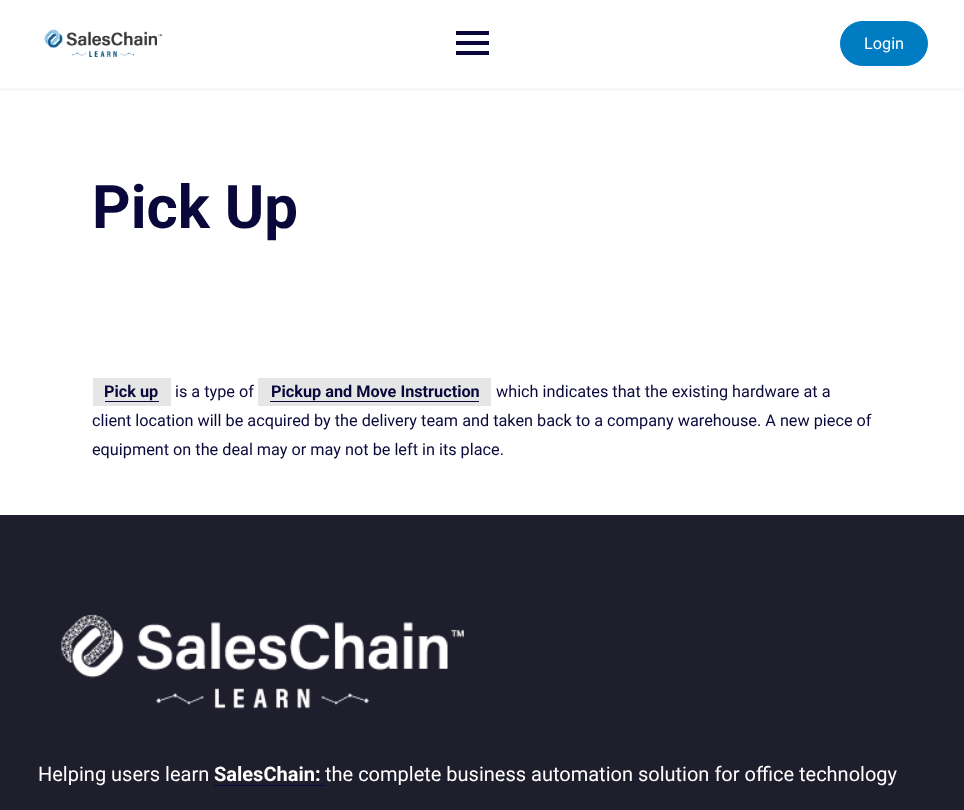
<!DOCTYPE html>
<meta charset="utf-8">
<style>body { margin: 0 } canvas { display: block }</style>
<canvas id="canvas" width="964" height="810"></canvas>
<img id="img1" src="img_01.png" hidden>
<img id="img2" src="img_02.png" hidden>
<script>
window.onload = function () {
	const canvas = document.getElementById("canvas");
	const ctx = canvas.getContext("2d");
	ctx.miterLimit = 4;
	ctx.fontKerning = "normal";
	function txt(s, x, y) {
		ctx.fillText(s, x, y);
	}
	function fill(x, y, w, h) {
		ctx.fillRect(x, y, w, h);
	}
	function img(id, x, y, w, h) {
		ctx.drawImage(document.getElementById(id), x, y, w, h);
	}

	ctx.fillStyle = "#FFFFFF";
	fill(0, 0, 964, 810);
	ctx.fillStyle = "#F8F8F8";
	fill(0, 88, 964, 3);
	img("img1", 44, 29, 119, 28);
	ctx.fillStyle = "#0A083B";
	fill(456, 41, 33, 4);
	fill(456, 31, 33, 4);
	fill(456, 51, 33, 4);
	ctx.fillStyle = "#007CC3";
	ctx.beginPath();
	ctx.roundRect(840.5, 21.5, 87, 44, 22);
	ctx.fill();
	ctx.strokeStyle = "#007CC3";
	ctx.stroke();
	ctx.fillStyle = "#E6E6E6";
	fill(93, 378, 78, 28);
	ctx.fillStyle = "#0A083B";
	fill(105, 401, 54, 1);
	ctx.fillStyle = "#E6E6E6";
	fill(258, 378, 233, 28);
	ctx.fillStyle = "#0A083B";
	fill(270, 401, 209, 1);
	ctx.fillStyle = "#1E1E2C";
	fill(0, 515, 964, 295);
	img("img2", 61, 614, 403, 95);
	ctx.fillStyle = "#0A083B";
	fill(214, 785, 111, 1);
	ctx.font = "16.25px Roboto";
	ctx.fillStyle = "#FFFFFF";
	txt("Login", 864, 49);
	ctx.font = "bold 60px Roboto";
	ctx.fillStyle = "#0A083B";
	txt("Pick Up", 92, 228);
	ctx.font = "bold 16.25px Roboto";
	txt("Pick up", 104, 397);
	ctx.font = "16.25px Roboto";
	txt("is a type of", 175, 397);
	ctx.font = "bold 16.25px Roboto";
	txt("Pickup and Move Instruction", 271, 397);
	ctx.font = "16.25px Roboto";
	txt("which indicates that the existing hardware at a", 496, 397);
	txt("client location will be acquired by the delivery team and taken back to a company warehouse. A new piece of", 92, 426);
	txt("equipment on the deal may or may not be left in its place.", 92, 455);
	ctx.font = "20px Roboto";
	ctx.fillStyle = "#FFFFFF";
	txt("Helping users learn", 38, 781);
	ctx.font = "bold 20px Roboto";
	txt("SalesChain:", 214, 781);
	ctx.font = "20px Roboto";
	txt("the complete business automation solution for office technology", 325, 781);
};
</script>
